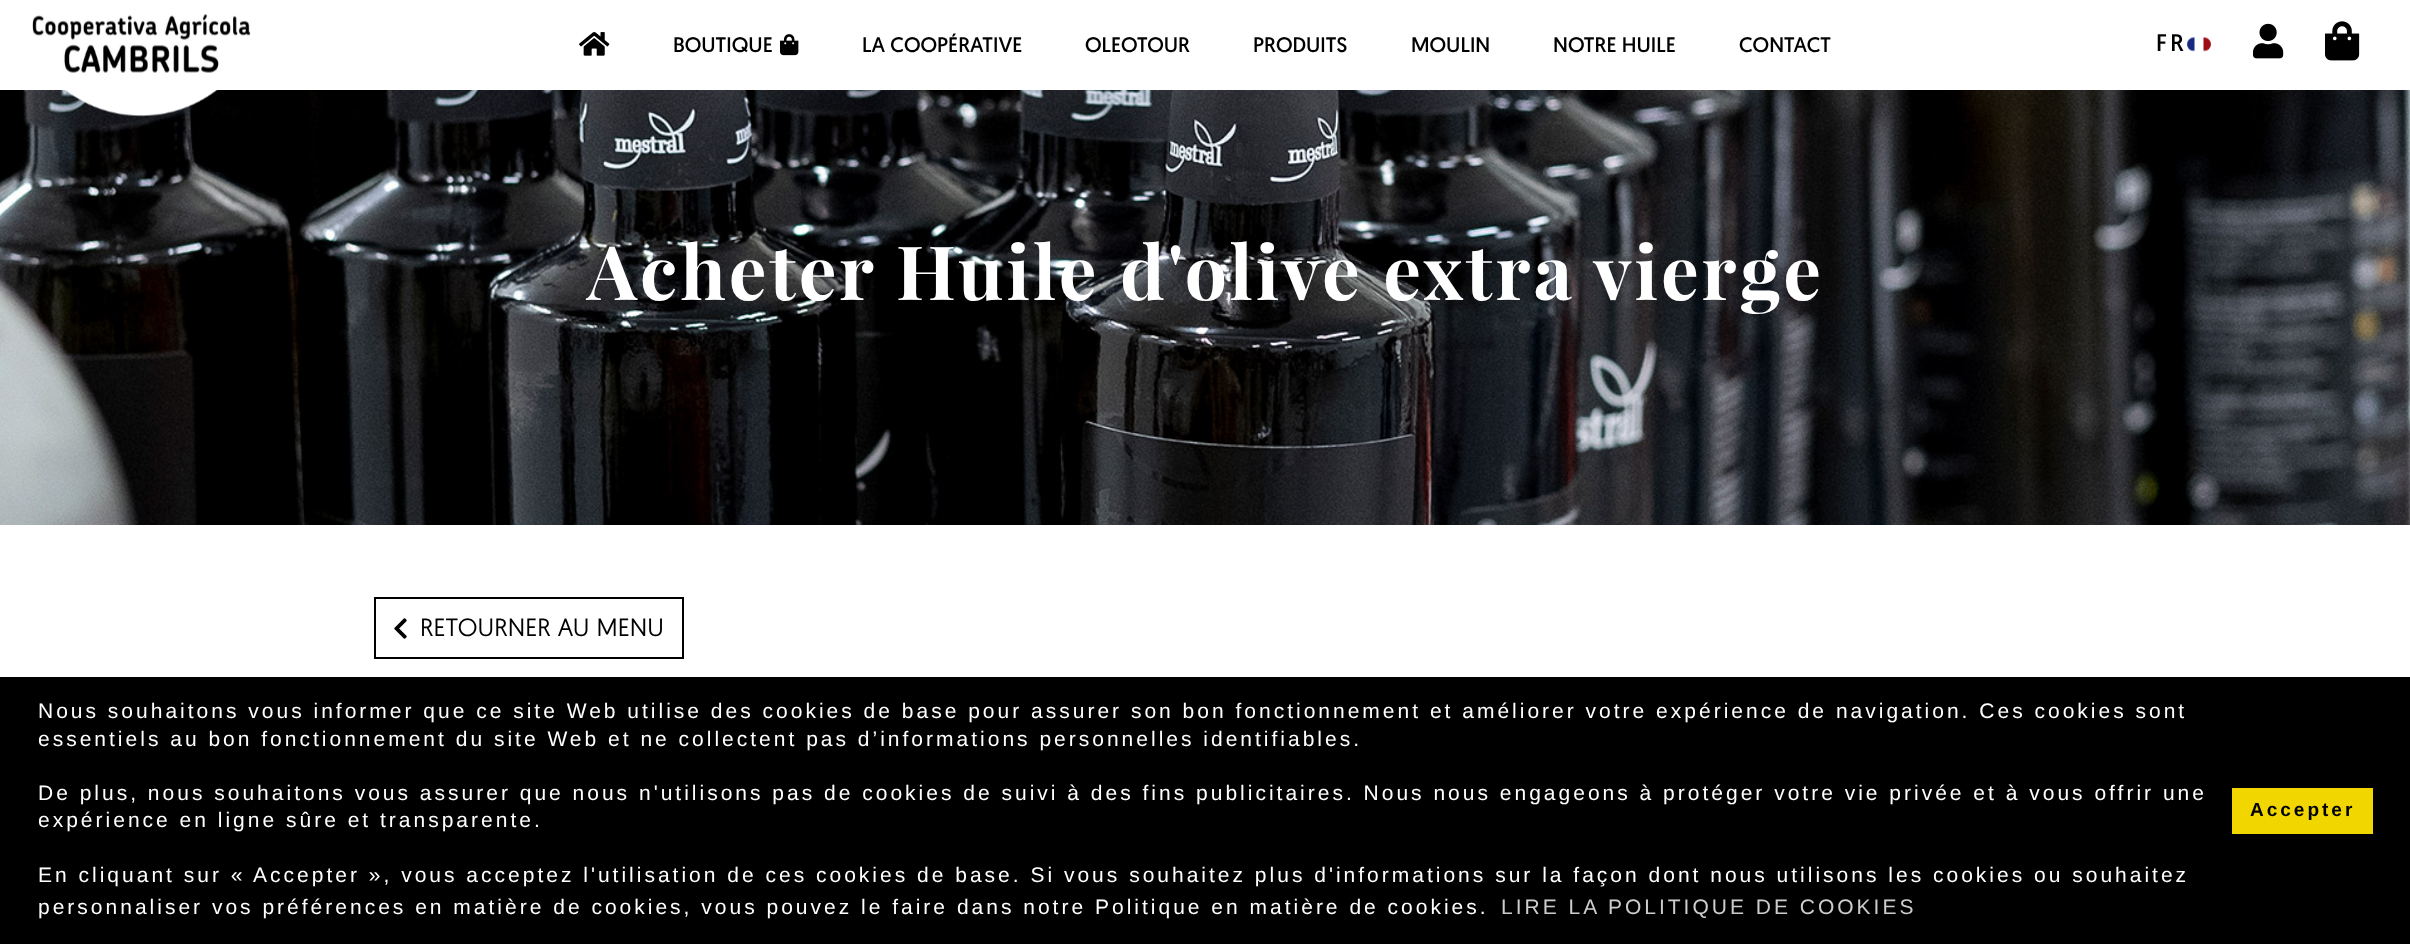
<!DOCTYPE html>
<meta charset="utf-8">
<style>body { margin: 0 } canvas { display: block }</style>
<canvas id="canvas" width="2410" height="944"></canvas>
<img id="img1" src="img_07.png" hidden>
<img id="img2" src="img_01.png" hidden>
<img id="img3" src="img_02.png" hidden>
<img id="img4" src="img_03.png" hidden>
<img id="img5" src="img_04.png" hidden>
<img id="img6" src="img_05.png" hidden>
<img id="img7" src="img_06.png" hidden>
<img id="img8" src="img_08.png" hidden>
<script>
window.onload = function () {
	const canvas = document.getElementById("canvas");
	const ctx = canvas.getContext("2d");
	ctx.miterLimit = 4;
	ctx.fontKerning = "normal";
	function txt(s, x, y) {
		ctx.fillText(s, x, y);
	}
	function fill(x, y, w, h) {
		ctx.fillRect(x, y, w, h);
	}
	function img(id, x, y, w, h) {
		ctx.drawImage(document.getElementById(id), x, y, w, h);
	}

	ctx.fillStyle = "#FFFFFF";
	fill(0, 0, 2410, 944);
	img("img1", 0, 90, 2410, 435);
	img("img2", 32, 14, 219, 103);
	img("img3", 579, 32, 31, 24);
	img("img4", 780, 34, 19, 22);
	img("img5", 2187, 37, 24, 15);
	img("img6", 2253, 23, 31, 36);
	img("img7", 2325, 21, 35, 40);
	ctx.strokeStyle = "#000000";
	ctx.lineWidth = 2;
	ctx.strokeRect(375, 598, 308, 60);
	img("img8", 394, 618, 13, 21);
	ctx.fillStyle = "#000000";
	fill(0, 677, 2410, 267);
	ctx.fillStyle = "#F1D600";
	fill(2232, 788, 141, 46);
	ctx.font = "21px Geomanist";
	ctx.fillStyle = "#000000";
	txt("BOUTIQUE", 673, 52);
	txt("LA COOPÉRATIVE", 862, 52);
	txt("OLEOTOUR", 1085, 52);
	txt("PRODUITS", 1253, 52);
	txt("MOULIN", 1411, 52);
	txt("NOTRE HUILE", 1553, 52);
	txt("CONTACT", 1739, 52);
	ctx.letterSpacing = "3px";
	ctx.font = "24px Geomanist";
	txt("FR", 2156, 51);
	ctx.font = "bold 75px Playfair Display";
	ctx.fillStyle = "#FFFFFF";
	txt("Acheter Huile d'olive extra vierge", 587, 300);
	ctx.letterSpacing = "0.75px";
	ctx.font = "bold 24px Geomanist";
	ctx.fillStyle = "#000000";
	txt("RETOURNER AU MENU", 420, 636);
	ctx.letterSpacing = "3px";
	ctx.font = "21px Liberation Sans";
	ctx.fillStyle = "#FFFFFF";
	txt("Nous souhaitons vous informer que ce site Web utilise des cookies de base pour assurer son bon fonctionnement et améliorer votre expérience de navigation. Ces cookies sont", 38, 718);
	txt("essentiels au bon fonctionnement du site Web et ne collectent pas d’informations personnelles identifiables.", 38, 746);
	txt("De plus, nous souhaitons vous assurer que nous n'utilisons pas de cookies de suivi à des fins publicitaires. Nous nous engageons à protéger votre vie privée et à vous offrir une", 38, 800);
	txt("expérience en ligne sûre et transparente.", 38, 827);
	txt("En cliquant sur « Accepter », vous acceptez l'utilisation de ces cookies de base. Si vous souhaitez plus d'informations sur la façon dont nous utilisons les cookies ou souhaitez", 38, 882);
	txt("personnaliser vos préférences en matière de cookies, vous pouvez le faire dans notre Politique en matière de cookies.", 38, 914);
	ctx.fillStyle = "#CCCCCC";
	txt("LIRE LA POLITIQUE DE COOKIES", 1501, 914);
	ctx.font = "bold 19px Liberation Sans";
	ctx.fillStyle = "#000000";
	txt("Accepter", 2250, 816);
};
</script>
